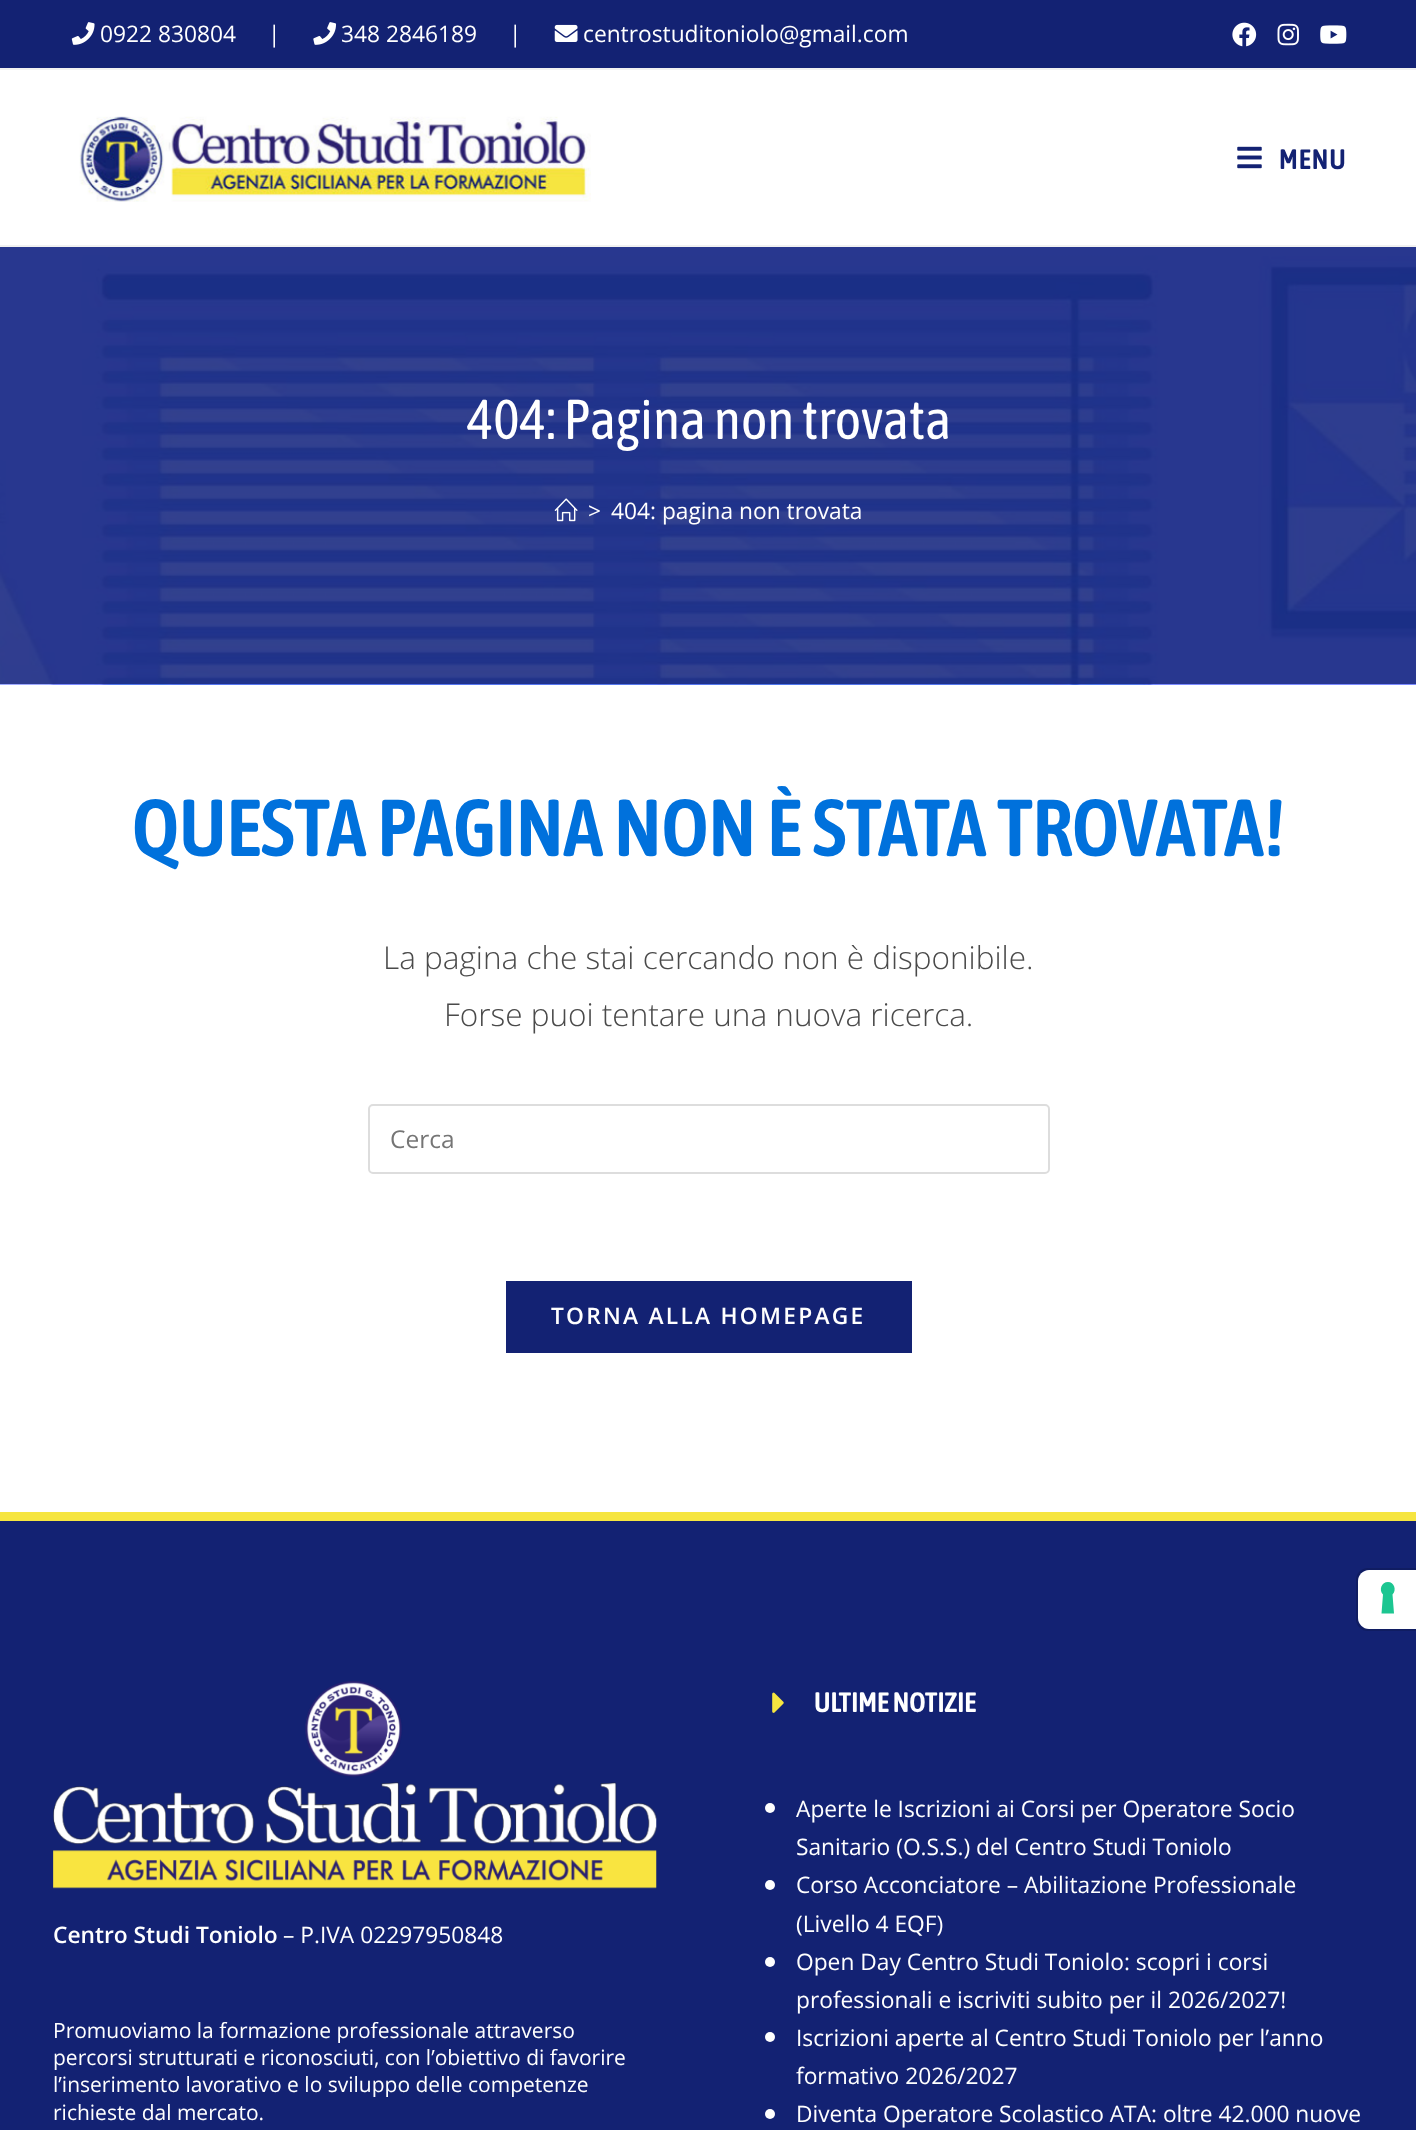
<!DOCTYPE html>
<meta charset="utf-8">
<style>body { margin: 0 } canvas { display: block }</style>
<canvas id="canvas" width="1416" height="2130"></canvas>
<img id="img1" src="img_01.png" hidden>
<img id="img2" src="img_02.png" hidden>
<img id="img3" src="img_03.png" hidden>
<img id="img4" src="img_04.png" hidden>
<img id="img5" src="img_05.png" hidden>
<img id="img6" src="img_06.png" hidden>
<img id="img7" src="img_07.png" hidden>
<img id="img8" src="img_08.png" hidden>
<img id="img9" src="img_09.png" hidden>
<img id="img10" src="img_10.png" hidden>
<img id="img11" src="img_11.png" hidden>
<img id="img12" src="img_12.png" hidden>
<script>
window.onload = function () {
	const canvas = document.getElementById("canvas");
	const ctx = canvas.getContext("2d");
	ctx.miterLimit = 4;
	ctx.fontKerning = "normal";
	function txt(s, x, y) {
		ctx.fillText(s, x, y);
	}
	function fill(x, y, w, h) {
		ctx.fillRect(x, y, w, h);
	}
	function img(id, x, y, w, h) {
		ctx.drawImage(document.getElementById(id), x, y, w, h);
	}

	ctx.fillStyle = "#FFFFFF";
	fill(0, 0, 1416, 2130);
	ctx.fillStyle = "#132273";
	fill(0, 0, 1416, 68);
	ctx.fillStyle = "#F1F1F1";
	fill(0, 68, 1416, 2);
	img("img1", 71, 22, 24, 23);
	img("img2", 313, 22, 24, 23);
	img("img3", 554, 24, 24, 18);
	img("img4", 1232, 22, 25, 25);
	img("img5", 1277, 23, 22, 23);
	img("img6", 1320, 25, 27, 19);
	fill(0, 245, 1416, 2);
	img("img7", 79, 116, 512, 86);
	img("img8", 1237, 146, 25, 23);
	img("img9", 0, 247, 1416, 438);
	img("img10", 554, 498, 24, 24);
	ctx.beginPath();
	ctx.roundRect(369, 1105, 680, 68, 4);
	ctx.strokeStyle = "#DDDDDD";
	ctx.lineWidth = 2;
	ctx.stroke();
	ctx.fillStyle = "#132273";
	fill(506, 1281, 406, 72);
	fill(0, 1521, 1416, 609);
	ctx.fillStyle = "#F6E540";
	fill(0, 1512, 1416, 9);
	img("img11", 53, 1681, 604, 208);
	img("img12", 772, 1692, 12, 21);
	ctx.fillStyle = "#FFFFFF";
	ctx.beginPath();
	ctx.arc(770, 1808, 5, 0, Math.PI * 2);
	ctx.fill();
	ctx.beginPath();
	ctx.arc(770, 1885, 5, 0, Math.PI * 2);
	ctx.fill();
	ctx.beginPath();
	ctx.arc(770, 1962, 5, 0, Math.PI * 2);
	ctx.fill();
	ctx.beginPath();
	ctx.arc(770, 2037, 5, 0, Math.PI * 2);
	ctx.fill();
	ctx.beginPath();
	ctx.arc(770, 2114, 5, 0, Math.PI * 2);
	ctx.fill();
	ctx.beginPath();
	ctx.moveTo(1368, 1569);
	ctx.lineTo(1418, 1569);
	ctx.lineTo(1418, 1630);
	ctx.lineTo(1368, 1630);
	ctx.bezierCurveTo(1362, 1630, 1357, 1625, 1357, 1619);
	ctx.lineTo(1357, 1580);
	ctx.bezierCurveTo(1357, 1574, 1362, 1569, 1368, 1569);
	ctx.closePath();
	ctx.strokeStyle = "#101D62";
	ctx.stroke();
	ctx.beginPath();
	ctx.moveTo(1369, 1570);
	ctx.lineTo(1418, 1570);
	ctx.lineTo(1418, 1629);
	ctx.lineTo(1369, 1629);
	ctx.bezierCurveTo(1363, 1629, 1358, 1624, 1358, 1618);
	ctx.lineTo(1358, 1581);
	ctx.bezierCurveTo(1358, 1575, 1363, 1570, 1369, 1570);
	ctx.closePath();
	ctx.fill();
	ctx.fillStyle = "#1CC691";
	ctx.beginPath();
	ctx.moveTo(1388, 1582);
	ctx.bezierCurveTo(1394, 1582, 1397, 1590, 1392.5, 1594.5);
	ctx.lineTo(1394, 1613.5);
	ctx.lineTo(1381.5, 1613.5);
	ctx.lineTo(1383, 1594.5);
	ctx.bezierCurveTo(1378.5, 1590, 1381.5, 1582, 1388, 1582);
	ctx.closePath();
	ctx.fill("evenodd");
	ctx.font = "22.75px Open Sans";
	ctx.fillStyle = "#FFFFFF";
	txt("0922 830804", 100, 42);
	txt("|", 268, 42);
	txt("348 2846189", 341, 42);
	txt("|", 509, 42);
	txt("centrostuditoniolo@gmail.com", 583, 42);
	ctx.letterSpacing = "1px";
	ctx.font = "600 28px Asap Condensed";
	ctx.fillStyle = "#132273";
	txt("MENU", 1279, 169);
	ctx.letterSpacing = "0px";
	ctx.font = "56px Asap Condensed";
	ctx.fillStyle = "#FFFFFF";
	txt("404: Pagina non trovata", 467, 439);
	ctx.font = "22.75px Open Sans";
	txt(">", 588, 519);
	txt("404: pagina non trovata", 611, 519);
	ctx.font = "600 80.5px Asap Condensed";
	ctx.fillStyle = "#0071DC";
	txt("QUESTA PAGINA NON È STATA TROVATA!", 132, 856);
	ctx.font = "300 31.5px Open Sans";
	ctx.fillStyle = "#4A4A4A";
	txt("La pagina che stai cercando non è disponibile.", 383, 969);
	txt("Forse puoi tentare una nuova ricerca.", 444, 1026);
	ctx.font = "24.5px Open Sans";
	ctx.fillStyle = "#757575";
	txt("Cerca", 390, 1148);
	ctx.letterSpacing = "2.25px";
	ctx.font = "600 22.75px Open Sans";
	ctx.fillStyle = "#FFFFFF";
	txt("TORNA ALLA HOMEPAGE", 551, 1324);
	ctx.letterSpacing = "0px";
	txt("Centro Studi Toniolo", 53, 1943);
	ctx.font = "22.75px Open Sans";
	txt("– P.IVA 02297950848", 283, 1943);
	ctx.font = "21px Open Sans";
	txt("Promuoviamo la formazione professionale attraverso", 53, 2038);
	txt("percorsi strutturati e riconosciuti, con l’obiettivo di favorire", 53, 2065);
	txt("l’inserimento lavorativo e lo sviluppo delle competenze", 53, 2092);
	txt("richieste dal mercato.", 53, 2120);
	ctx.font = "600 28px Asap Condensed";
	txt("ULTIME NOTIZIE", 814, 1712);
	ctx.font = "22.75px Open Sans";
	txt("Aperte le Iscrizioni ai Corsi per Operatore Socio", 796, 1817);
	txt("Sanitario (O.S.S.) del Centro Studi Toniolo", 796, 1855);
	txt("Corso Acconciatore – Abilitazione Professionale", 796, 1893);
	txt("(Livello 4 EQF)", 796, 1932);
	txt("Open Day Centro Studi Toniolo: scopri i corsi", 796, 1970);
	txt("professionali e iscriviti subito per il 2026/2027!", 796, 2008);
	txt("Iscrizioni aperte al Centro Studi Toniolo per l’anno", 796, 2046);
	txt("formativo 2026/2027", 796, 2084);
	txt("Diventa Operatore Scolastico ATA: oltre 42.000 nuove", 796, 2122);
};
</script>
